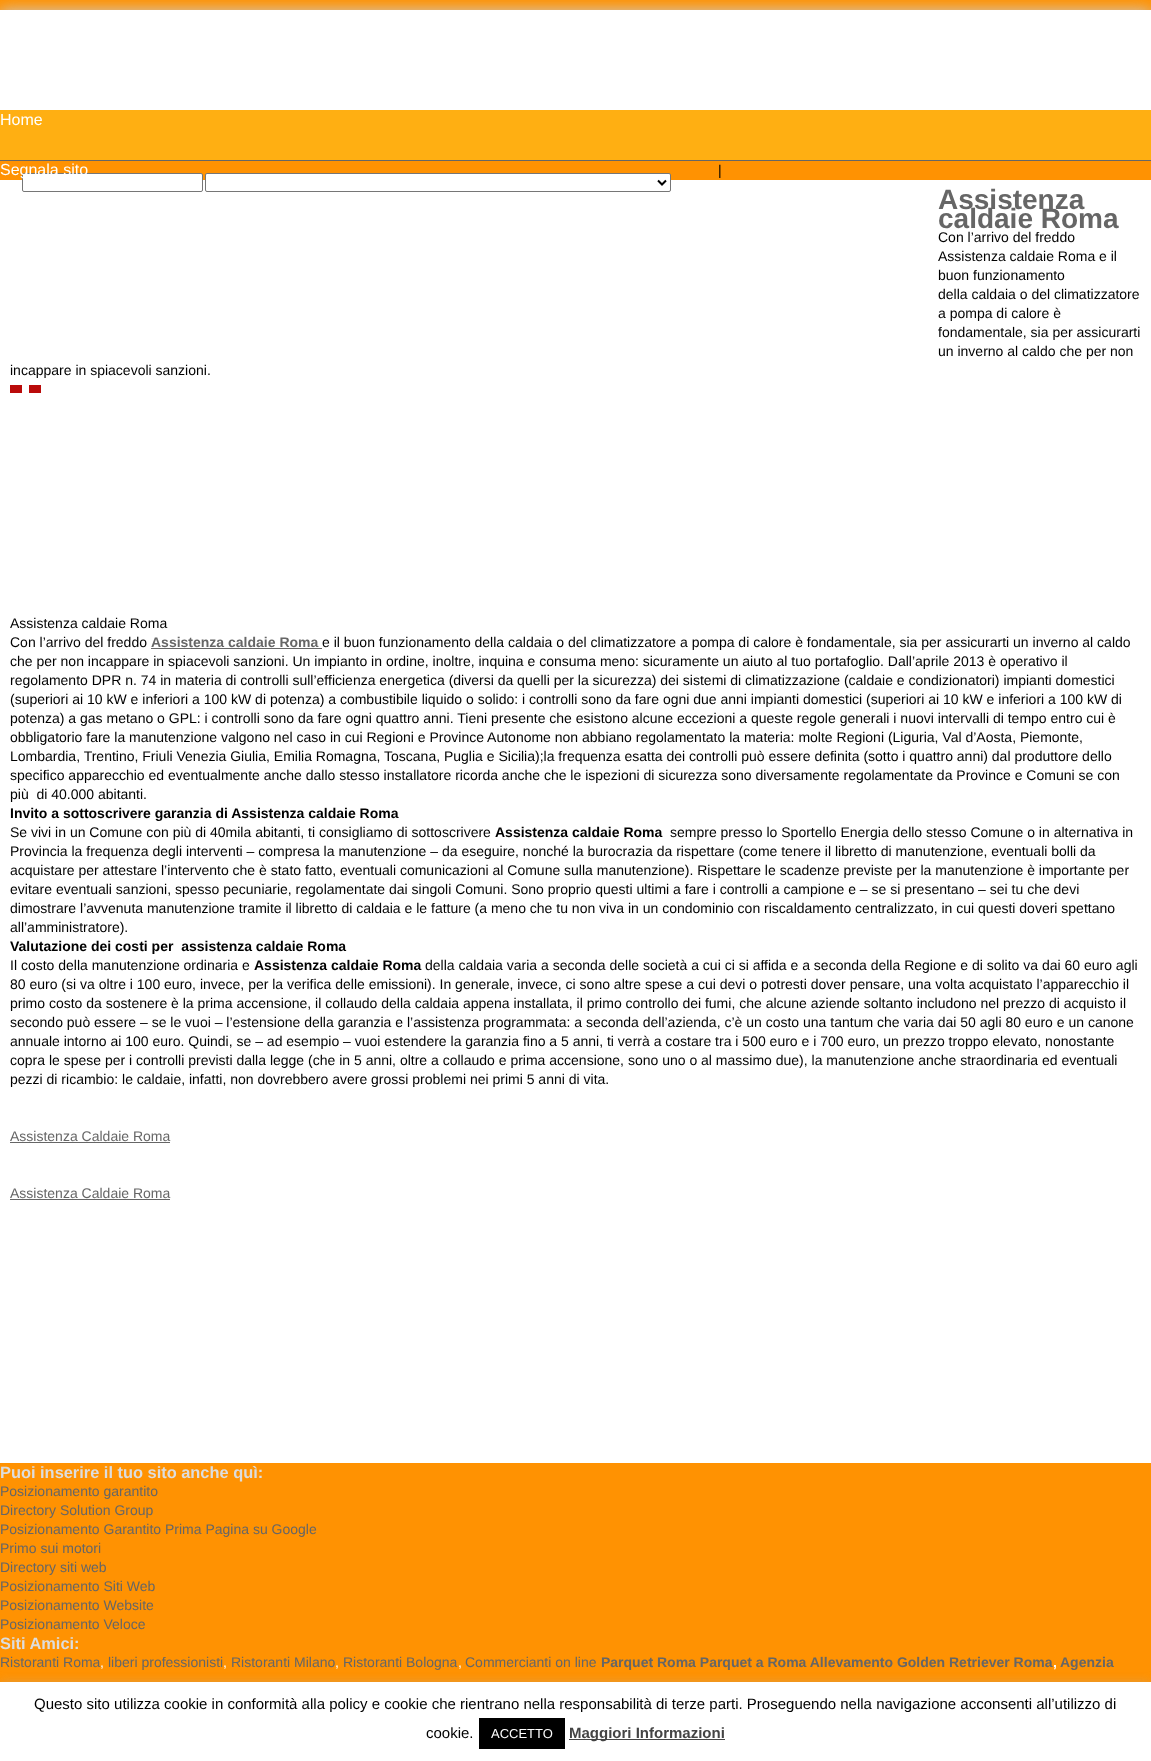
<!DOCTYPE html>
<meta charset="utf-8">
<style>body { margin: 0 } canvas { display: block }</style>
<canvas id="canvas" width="1151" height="1761"></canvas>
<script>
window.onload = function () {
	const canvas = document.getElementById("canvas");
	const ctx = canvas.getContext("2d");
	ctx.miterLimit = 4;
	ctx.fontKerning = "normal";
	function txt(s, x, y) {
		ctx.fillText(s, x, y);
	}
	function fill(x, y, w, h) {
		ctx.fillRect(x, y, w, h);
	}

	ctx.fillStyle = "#FF9202";
	fill(0, 0, 1151, 1761);
	ctx.save();
	ctx.beginPath();
	ctx.rect(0, 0, 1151, 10);
	ctx.clip();
	ctx.fillStyle = "#CCCCCC";
	ctx.filter = "blur(7.5px)";
	ctx.beginPath();
	ctx.rect(0, 10, 1151, 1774);
	ctx.fill();
	ctx.filter = "none";
	ctx.restore();
	ctx.fillStyle = "#FFFFFF";
	fill(0, 10, 1151, 100);
	ctx.fillStyle = "#FFAF12";
	fill(0, 110, 1151, 50);
	ctx.fillStyle = "#666666";
	fill(0, 160, 1151, 1);
	ctx.fillStyle = "#FFFFFF";
	fill(0, 180, 1151, 1283);
	ctx.beginPath();
	ctx.roundRect(22.5, 173.5, 180, 18, 1.5);
	ctx.fill();
	ctx.strokeStyle = "#767676";
	ctx.stroke();
	ctx.beginPath();
	ctx.roundRect(205.5, 173.5, 465, 18, 1.5);
	ctx.fill();
	ctx.stroke();
	ctx.beginPath();
	ctx.moveTo(658, 180.5);
	ctx.lineTo(662, 184.5);
	ctx.lineTo(666, 180.5);
	ctx.strokeStyle = "#000000";
	ctx.lineWidth = 2;
	ctx.stroke();
	ctx.fillStyle = "#BA0B0A";
	fill(10, 385, 12, 8);
	fill(29, 385, 12, 8);
	ctx.fillStyle = "#666666";
	fill(151, 648, 171, 1);
	fill(10, 1142, 160, 1);
	fill(10, 1199, 160, 1);
	ctx.fillStyle = "rgba(172, 171, 171, 0.3)";
	ctx.filter = "blur(5px)";
	ctx.beginPath();
	ctx.rect(0, 1681, 1151, 79);
	ctx.fill();
	ctx.filter = "none";
	ctx.fillStyle = "#FFFFFF";
	fill(0, 1682, 1151, 79);
	ctx.fillStyle = "#000000";
	fill(479, 1718, 86, 31);
	ctx.fillStyle = "#444444";
	fill(569, 1739, 156, 1);
	ctx.font = "16px Liberation Sans";
	ctx.fillStyle = "#FFFFFF";
	txt("Home", 0, 125);
	txt("Segnala sito", 0, 175);
	ctx.font = "14px Liberation Sans";
	ctx.fillStyle = "#000000";
	txt("|", 718, 175);
	ctx.font = "bold 28px Liberation Sans";
	ctx.fillStyle = "#666666";
	txt("Assistenza", 938, 209);
	txt("caldaie Roma", 938, 228);
	ctx.font = "14px Liberation Sans";
	ctx.fillStyle = "#000000";
	txt("Con l’arrivo del freddo", 938, 242);
	txt("Assistenza caldaie Roma e il", 938, 261);
	txt("buon funzionamento", 938, 280);
	txt("della caldaia o del climatizzatore", 938, 299);
	txt("a pompa di calore è", 938, 318);
	txt("fondamentale, sia per assicurarti", 938, 337);
	txt("un inverno al caldo che per non", 938, 356);
	txt("incappare in spiacevoli sanzioni.", 10, 375);
	txt("Assistenza caldaie Roma", 10, 628);
	txt("Con l’arrivo del freddo", 10, 647);
	ctx.font = "bold 14px Liberation Sans";
	ctx.fillStyle = "#666666";
	txt("Assistenza caldaie Roma", 151, 647);
	ctx.font = "14px Liberation Sans";
	ctx.fillStyle = "#000000";
	txt("e il buon funzionamento della caldaia o del climatizzatore a pompa di calore è fondamentale, sia per assicurarti un inverno al caldo", 322, 647);
	txt("che per non incappare in spiacevoli sanzioni. Un impianto in ordine, inoltre, inquina e consuma meno: sicuramente un aiuto al tuo portafoglio. Dall’aprile 2013 è operativo il", 10, 666);
	txt("regolamento DPR n. 74 in materia di controlli sull’efficienza energetica (diversi da quelli per la sicurezza) dei sistemi di climatizzazione (caldaie e condizionatori) impianti domestici", 10, 685);
	txt("(superiori ai 10 kW e inferiori a 100 kW di potenza) a combustibile liquido o solido: i controlli sono da fare ogni due anni impianti domestici (superiori ai 10 kW e inferiori a 100 kW di", 10, 704);
	txt("potenza) a gas metano o GPL: i controlli sono da fare ogni quattro anni. Tieni presente che esistono alcune eccezioni a queste regole generali i nuovi intervalli di tempo entro cui è", 10, 723);
	txt("obbligatorio fare la manutenzione valgono nel caso in cui Regioni e Province Autonome non abbiano regolamentato la materia: molte Regioni (Liguria, Val d’Aosta, Piemonte,", 10, 742);
	txt("Lombardia, Trentino, Friuli Venezia Giulia, Emilia Romagna, Toscana, Puglia e Sicilia);la frequenza esatta dei controlli può essere definita (sotto i quattro anni) dal produttore dello", 10, 761);
	txt("specifico apparecchio ed eventualmente anche dallo stesso installatore ricorda anche che le ispezioni di sicurezza sono diversamente regolamentate da Province e Comuni se con", 10, 780);
	txt("più  di 40.000 abitanti.", 10, 799);
	ctx.font = "bold 14px Liberation Sans";
	txt("Invito a sottoscrivere garanzia di Assistenza caldaie Roma", 10, 818);
	ctx.font = "14px Liberation Sans";
	txt("Se vivi in un Comune con più di 40mila abitanti, ti consigliamo di sottoscrivere", 10, 837);
	ctx.font = "bold 14px Liberation Sans";
	txt("Assistenza caldaie Roma", 495, 837);
	ctx.font = "14px Liberation Sans";
	txt("sempre presso lo Sportello Energia dello stesso Comune o in alternativa in", 670, 837);
	txt("Provincia la frequenza degli interventi – compresa la manutenzione – da eseguire, nonché la burocrazia da rispettare (come tenere il libretto di manutenzione, eventuali bolli da", 10, 856);
	txt("acquistare per attestare l’intervento che è stato fatto, eventuali comunicazioni al Comune sulla manutenzione). Rispettare le scadenze previste per la manutenzione è importante per", 10, 875);
	txt("evitare eventuali sanzioni, spesso pecuniarie, regolamentate dai singoli Comuni. Sono proprio questi ultimi a fare i controlli a campione e – se si presentano – sei tu che devi", 10, 894);
	txt("dimostrare l’avvenuta manutenzione tramite il libretto di caldaia e le fatture (a meno che tu non viva in un condominio con riscaldamento centralizzato, in cui questi doveri spettano", 10, 913);
	txt("all’amministratore).", 10, 932);
	ctx.font = "bold 14px Liberation Sans";
	txt("Valutazione dei costi per  assistenza caldaie Roma", 10, 951);
	ctx.font = "14px Liberation Sans";
	txt("Il costo della manutenzione ordinaria e", 10, 970);
	ctx.font = "bold 14px Liberation Sans";
	txt("Assistenza caldaie Roma", 254, 970);
	ctx.font = "14px Liberation Sans";
	txt("della caldaia varia a seconda delle società a cui ci si affida e a seconda della Regione e di solito va dai 60 euro agli", 425, 970);
	txt("80 euro (si va oltre i 100 euro, invece, per la verifica delle emissioni). In generale, invece, ci sono altre spese a cui devi o potresti dover pensare, una volta acquistato l’apparecchio il", 10, 989);
	txt("primo costo da sostenere è la prima accensione, il collaudo della caldaia appena installata, il primo controllo dei fumi, che alcune aziende soltanto includono nel prezzo di acquisto il", 10, 1008);
	txt("secondo può essere – se le vuoi – l’estensione della garanzia e l’assistenza programmata: a seconda dell’azienda, c’è un costo una tantum che varia dai 50 agli 80 euro e un canone", 10, 1027);
	txt("annuale intorno ai 100 euro. Quindi, se – ad esempio – vuoi estendere la garanzia fino a 5 anni, ti verrà a costare tra i 500 euro e i 700 euro, un prezzo troppo elevato, nonostante", 10, 1046);
	txt("copra le spese per i controlli previsti dalla legge (che in 5 anni, oltre a collaudo e prima accensione, sono uno o al massimo due), la manutenzione anche straordinaria ed eventuali", 10, 1065);
	txt("pezzi di ricambio: le caldaie, infatti, non dovrebbero avere grossi problemi nei primi 5 anni di vita.", 10, 1084);
	ctx.fillStyle = "#666666";
	txt("Assistenza Caldaie Roma", 10, 1141);
	txt("Assistenza Caldaie Roma", 10, 1198);
	ctx.font = "bold 16.4px Liberation Sans";
	ctx.fillStyle = "#DDDDDD";
	txt("Puoi inserire il tuo sito anche quì:", 0, 1478);
	ctx.font = "14px Liberation Sans";
	ctx.fillStyle = "#666666";
	txt("Posizionamento garantito", 0, 1496);
	txt("Directory Solution Group", 0, 1515);
	txt("Posizionamento Garantito Prima Pagina su Google", 0, 1534);
	txt("Primo sui motori", 0, 1553);
	txt("Directory siti web", 0, 1572);
	txt("Posizionamento Siti Web", 0, 1591);
	txt("Posizionamento Website", 0, 1610);
	txt("Posizionamento Veloce", 0, 1629);
	ctx.font = "bold 16.4px Liberation Sans";
	ctx.fillStyle = "#DDDDDD";
	txt("Siti Amici:", 0, 1649);
	ctx.font = "14px Liberation Sans";
	ctx.fillStyle = "#666666";
	txt("Ristoranti Roma", 0, 1667);
	ctx.fillStyle = "#FFFFFF";
	txt(",", 100, 1667);
	ctx.fillStyle = "#666666";
	txt("liberi professionisti", 108, 1667);
	ctx.fillStyle = "#FFFFFF";
	txt(",", 223, 1667);
	ctx.fillStyle = "#666666";
	txt("Ristoranti Milano", 231, 1667);
	ctx.fillStyle = "#FFFFFF";
	txt(",", 335, 1667);
	ctx.fillStyle = "#666666";
	txt("Ristoranti Bologna", 343, 1667);
	ctx.fillStyle = "#FFFFFF";
	txt(",", 458, 1667);
	ctx.fillStyle = "#666666";
	txt("Commercianti on line", 465, 1667);
	ctx.font = "bold 14px Liberation Sans";
	txt("Parquet Roma Parquet a Roma Allevamento Golden Retriever Roma", 601, 1667);
	ctx.fillStyle = "#FFFFFF";
	txt(",", 1053, 1667);
	ctx.fillStyle = "#666666";
	txt("Agenzia", 1060, 1667);
	ctx.font = "15px Liberation Sans";
	ctx.fillStyle = "#000000";
	txt("Questo sito utilizza cookie in conformità alla policy e cookie che rientrano nella responsabilità di terze parti. Proseguendo nella navigazione acconsenti all’utilizzo di", 34, 1709);
	txt("cookie.", 426, 1738);
	ctx.font = "13px Liberation Sans";
	ctx.fillStyle = "#FFFFFF";
	txt("ACCETTO", 491, 1738);
	ctx.font = "bold 15px Liberation Sans";
	ctx.fillStyle = "#444444";
	txt("Maggiori Informazioni", 569, 1738);
};
</script>
